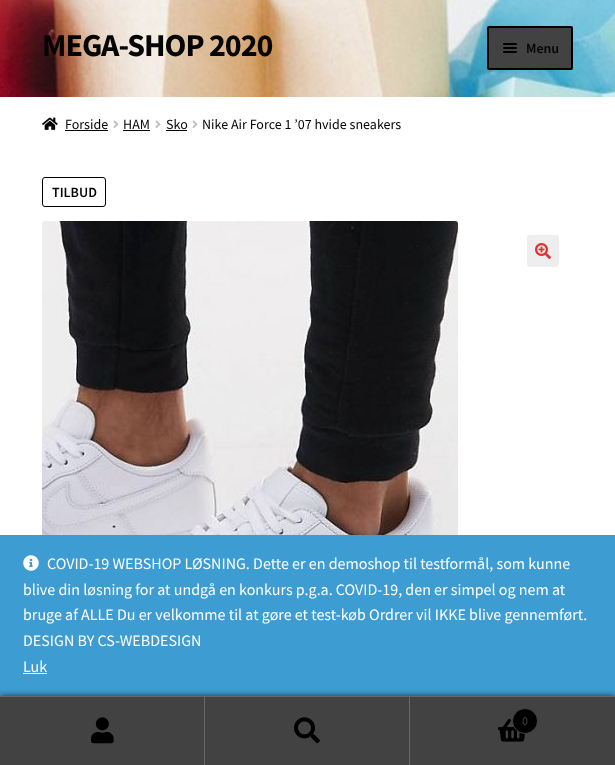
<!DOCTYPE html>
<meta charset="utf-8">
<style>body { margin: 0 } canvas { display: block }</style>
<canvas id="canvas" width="615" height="765"></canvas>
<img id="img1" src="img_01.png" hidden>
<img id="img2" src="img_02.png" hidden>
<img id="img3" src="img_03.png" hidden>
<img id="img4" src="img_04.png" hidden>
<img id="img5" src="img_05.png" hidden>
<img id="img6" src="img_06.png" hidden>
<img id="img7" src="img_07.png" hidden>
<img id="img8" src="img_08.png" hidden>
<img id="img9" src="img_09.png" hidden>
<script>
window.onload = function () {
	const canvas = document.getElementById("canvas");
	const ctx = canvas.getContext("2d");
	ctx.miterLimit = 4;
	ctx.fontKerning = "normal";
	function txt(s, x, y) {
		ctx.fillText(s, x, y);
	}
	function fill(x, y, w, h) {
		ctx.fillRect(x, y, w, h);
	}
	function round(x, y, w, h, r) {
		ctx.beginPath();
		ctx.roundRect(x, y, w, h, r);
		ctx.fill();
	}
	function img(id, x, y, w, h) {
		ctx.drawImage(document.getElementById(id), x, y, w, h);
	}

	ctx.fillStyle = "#FFFFFF";
	fill(0, 0, 615, 765);
	img("img1", 0, 0, 615, 97);
	ctx.fillStyle = "#424242";
	ctx.beginPath();
	ctx.roundRect(488, 27, 84, 42, 1);
	ctx.fill();
	ctx.strokeStyle = "#000000";
	ctx.lineWidth = 2;
	ctx.stroke();
	ctx.fillStyle = "#000000";
	round(503, 43, 14, 2, 1);
	round(503, 47, 14, 2, 1);
	round(503, 51, 14, 2, 1);
	img("img2", 42, 117, 16, 13);
	ctx.fillStyle = "#050505";
	fill(65, 130, 43, 1);
	img("img3", 113, 120, 6, 8);
	fill(123, 130, 27, 1);
	img("img3", 155, 120, 6, 8);
	fill(166, 130, 21, 1);
	img("img3", 192, 120, 6, 8);
	ctx.beginPath();
	ctx.roundRect(42.5, 177.5, 63, 29, 2.5);
	ctx.lineWidth = 1;
	ctx.stroke();
	img("img4", 42, 221, 416, 314);
	ctx.fillStyle = "#EEEEEE";
	round(527, 235, 32, 32, 3);
	img("img5", 535, 243, 16, 16);
	ctx.fillStyle = "#3D9CD2";
	fill(0, 535, 615, 161);
	ctx.fillStyle = "rgba(0, 0, 0, 0.7)";
	ctx.filter = "blur(3px)";
	ctx.beginPath();
	ctx.rect(0, 696, 615, 69);
	ctx.fill();
	ctx.filter = "none";
	ctx.fillStyle = "#686868";
	fill(0, 696, 615, 1);
	ctx.fillStyle = "#424242";
	fill(0, 697, 204, 68);
	ctx.fillStyle = "#686868";
	fill(204, 697, 1, 68);
	img("img6", 91, 717, 23, 27);
	ctx.fillStyle = "#424242";
	fill(205, 697, 204, 68);
	ctx.fillStyle = "#686868";
	fill(409, 697, 1, 68);
	img("img7", 294, 717, 26, 27);
	ctx.fillStyle = "#424242";
	fill(410, 697, 205, 68);
	img("img8", 498, 719, 28, 23);
	ctx.fillStyle = "#000000";
	ctx.beginPath();
	ctx.arc(525, 721, 12.5, 0, Math.PI * 2);
	ctx.fill();
	ctx.strokeStyle = "#424242";
	ctx.stroke();
	img("img9", 23, 555, 16, 16);
	ctx.fillStyle = "#FFFFFF";
	fill(23, 673, 24, 1);
	ctx.letterSpacing = "-1px";
	ctx.font = "bold 32px Source Sans Pro";
	ctx.fillStyle = "#050505";
	txt("MEGA-SHOP 2020", 42, 56);
	ctx.letterSpacing = "0px";
	ctx.font = "600 14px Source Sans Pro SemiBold";
	txt("Menu", 526, 53);
	ctx.font = "14px Source Sans Pro";
	txt("Forside", 65, 129);
	txt("HAM", 123, 129);
	txt("Sko", 166, 129);
	txt("Nike Air Force 1 ’07 hvide sneakers", 202, 129);
	ctx.font = "600 14px Source Sans Pro SemiBold";
	txt("TILBUD", 52, 197);
	ctx.font = "12px Source Sans Pro";
	ctx.fillStyle = "#424242";
	txt("0", 522, 725);
	ctx.font = "16px Source Sans Pro";
	ctx.fillStyle = "#FFFFFF";
	txt("COVID-19 WEBSHOP LØSNING. Dette er en demoshop til testformål, som kunne", 47, 569);
	txt("blive din løsning for at undgå en konkurs p.g.a. COVID-19, den er simpel og nem at", 23, 595);
	txt("bruge af ALLE Du er velkomme til at gøre et test-køb Ordrer vil IKKE blive gennemført.", 23, 620);
	txt("DESIGN BY CS-WEBDESIGN", 23, 646);
	txt("Luk", 23, 672);
};
</script>
